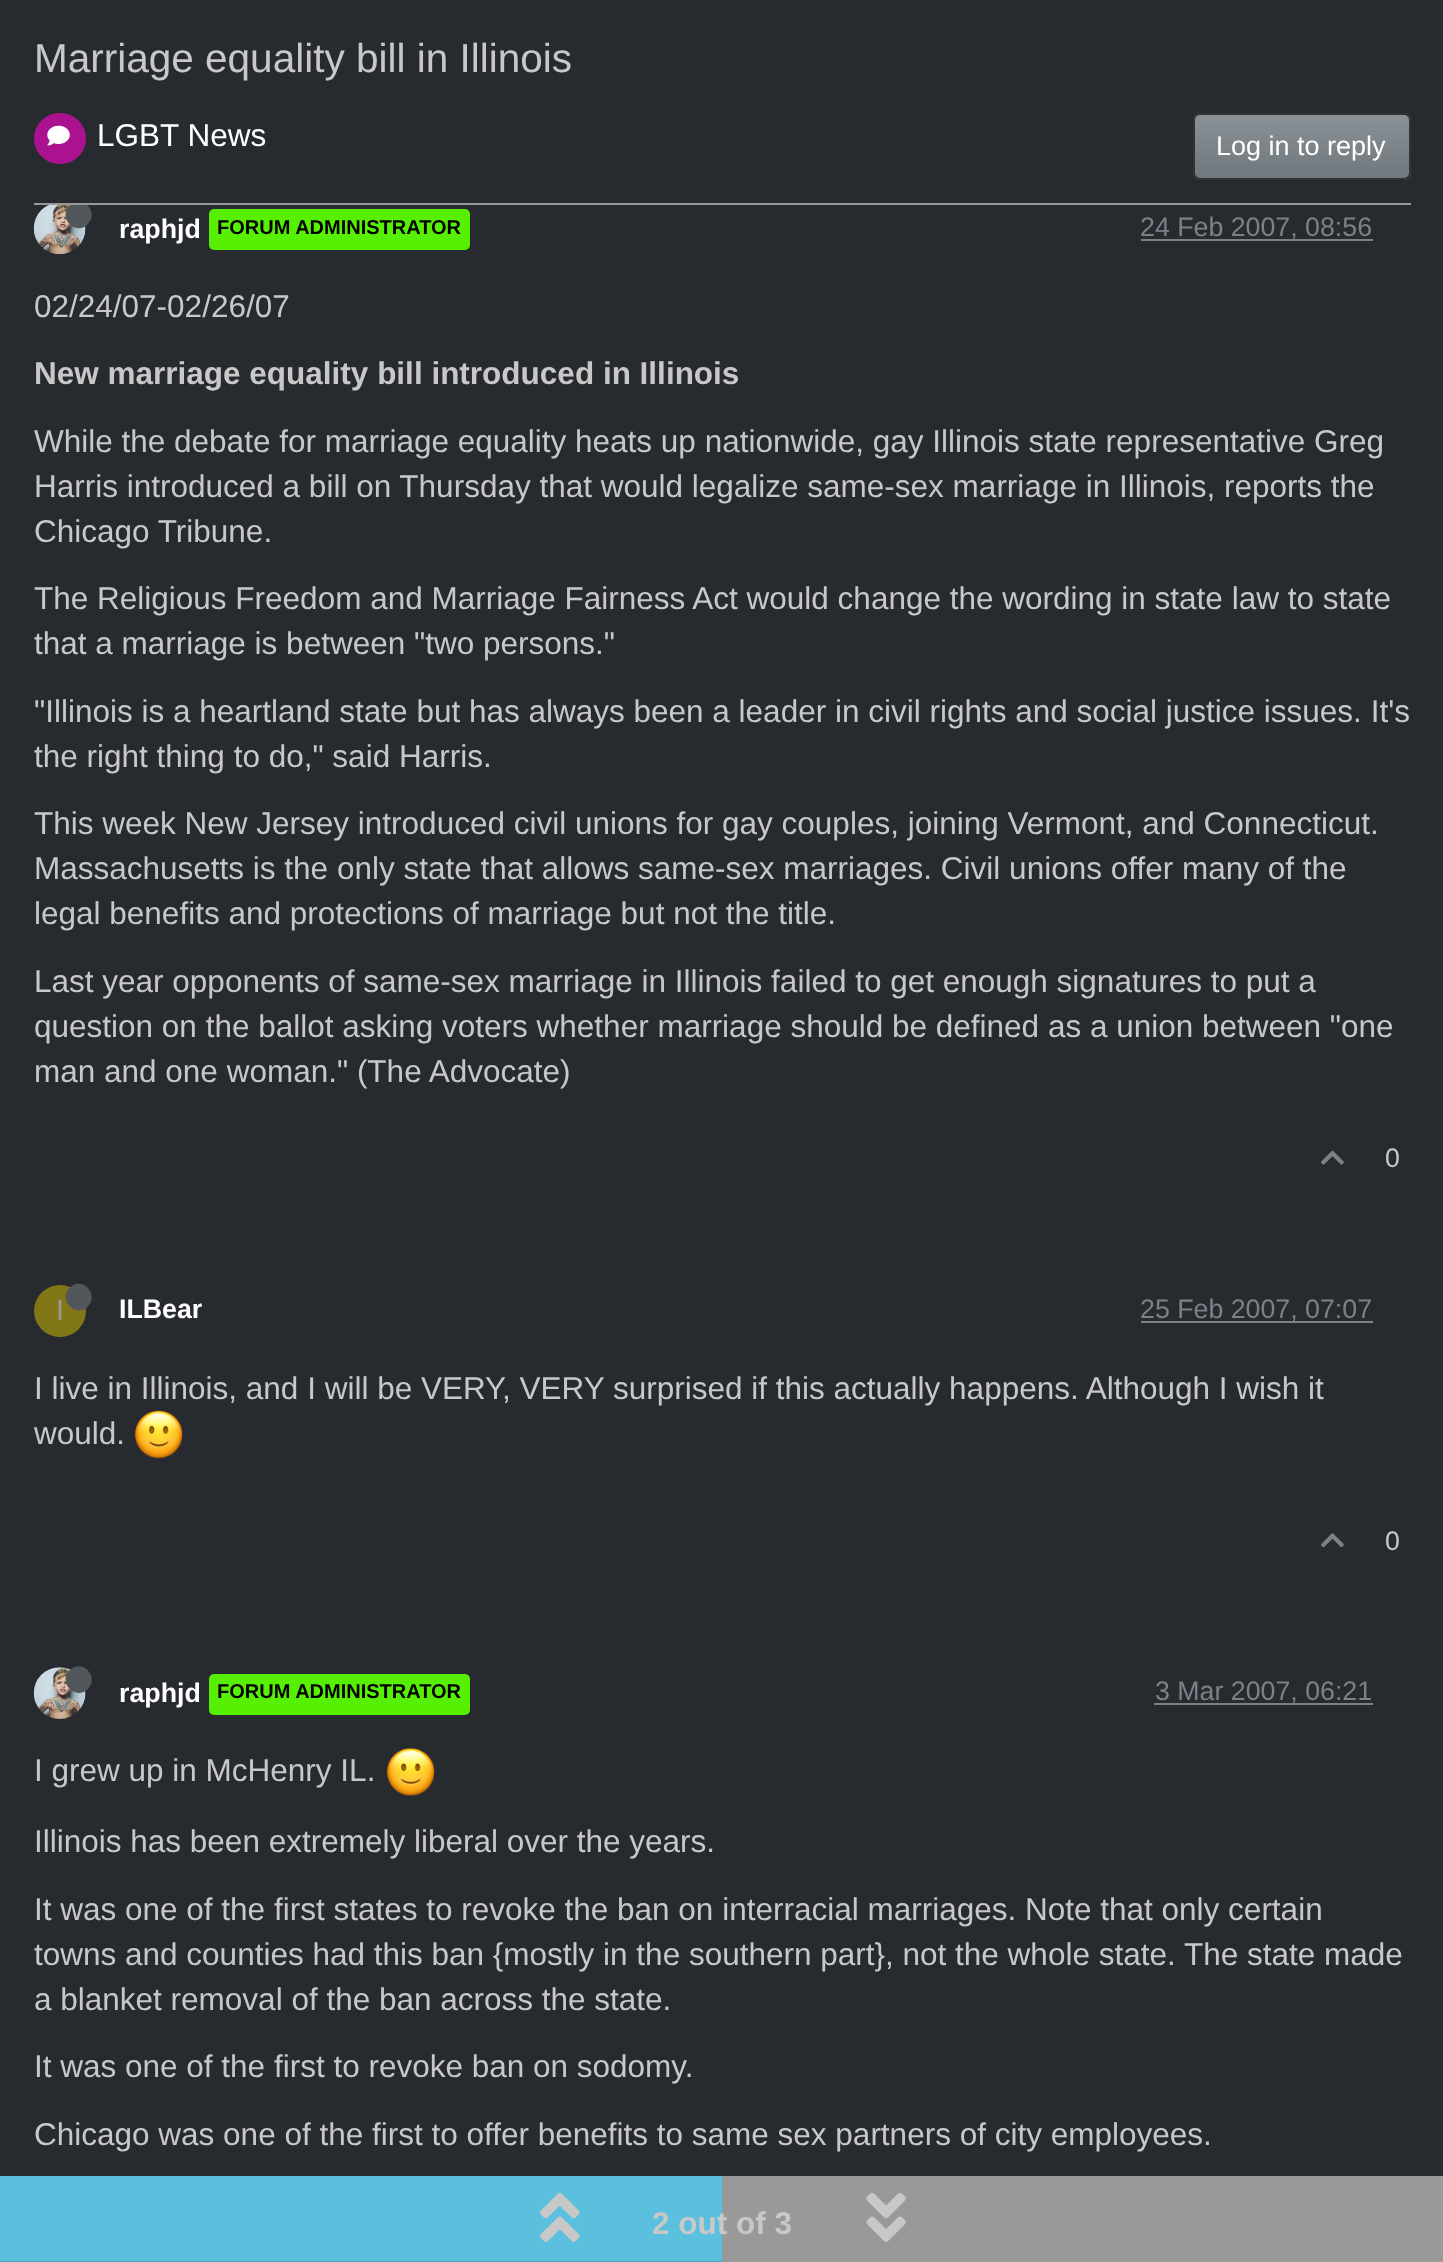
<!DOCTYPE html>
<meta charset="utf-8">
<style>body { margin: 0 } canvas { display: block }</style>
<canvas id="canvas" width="1443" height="2262"></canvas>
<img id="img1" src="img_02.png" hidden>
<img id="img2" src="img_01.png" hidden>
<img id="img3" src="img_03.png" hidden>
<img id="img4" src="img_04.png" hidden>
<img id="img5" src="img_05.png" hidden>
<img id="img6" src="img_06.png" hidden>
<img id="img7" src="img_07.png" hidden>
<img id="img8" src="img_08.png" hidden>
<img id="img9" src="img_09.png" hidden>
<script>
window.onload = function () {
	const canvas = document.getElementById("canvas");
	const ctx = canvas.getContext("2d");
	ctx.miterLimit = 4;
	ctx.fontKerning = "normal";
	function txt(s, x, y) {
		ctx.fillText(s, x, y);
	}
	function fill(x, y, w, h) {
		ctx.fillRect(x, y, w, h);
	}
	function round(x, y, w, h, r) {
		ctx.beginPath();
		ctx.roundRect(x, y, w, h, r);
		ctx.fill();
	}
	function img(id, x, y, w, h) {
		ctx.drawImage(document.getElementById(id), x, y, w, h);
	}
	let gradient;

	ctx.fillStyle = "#272B30";
	fill(0, 0, 1443, 2262);
	img("img1", 33, 205, 53, 50);
	ctx.fillStyle = "#52575C";
	ctx.beginPath();
	ctx.moveTo(69.5, 205.5);
	ctx.bezierCurveTo(81.5, 193.5, 100, 212, 88, 224);
	ctx.bezierCurveTo(76, 236.5, 57.5, 218, 69.5, 205.5);
	ctx.closePath();
	ctx.fill();
	ctx.fillStyle = "#272B30";
	fill(70, 201, 17, 4);
	ctx.fillStyle = "#999999";
	fill(34, 203, 1377, 2);
	ctx.fillStyle = "#AB1290";
	round(34, 113, 52, 51, 25.5);
	img("img2", 47, 125, 23, 21);
	ctx.fillStyle = "#7A8288";
	round(1193, 113, 218, 67, 7);
	gradient = ctx.createLinearGradient(1302, 115, 1302, 178);
	gradient.addColorStop(0, "#8A9196");
	gradient.addColorStop(0.6, "#7A8288");
	gradient.addColorStop(1, "#70787D");
	ctx.fillStyle = gradient;
	fill(1195, 115, 214, 63);
	ctx.beginPath();
	ctx.roundRect(1194, 114, 216, 65, 6);
	ctx.strokeStyle = "rgba(0, 0, 0, 0.6)";
	ctx.lineWidth = 2;
	ctx.stroke();
	ctx.fillStyle = "#57F005";
	round(209, 209, 261, 41, 5);
	ctx.fillStyle = "#7A8288";
	fill(1141, 239, 232, 2);
	img("img3", 1321, 1150, 23, 15);
	ctx.fillStyle = "#827717";
	ctx.beginPath();
	ctx.arc(60, 1311, 26, 0, Math.PI * 2);
	ctx.fill();
	ctx.fillStyle = "#52575C";
	ctx.beginPath();
	ctx.moveTo(69.5, 1288);
	ctx.bezierCurveTo(81.5, 1275.5, 100, 1294, 88, 1306.5);
	ctx.bezierCurveTo(76, 1318.5, 57.5, 1300, 69.5, 1288);
	ctx.closePath();
	ctx.fill();
	ctx.fillStyle = "#7A8288";
	fill(1141, 1321, 232, 2);
	img("img4", 134, 1410, 49, 49);
	img("img5", 1321, 1533, 23, 15);
	img("img6", 33, 1667, 53, 52);
	ctx.fillStyle = "#52575C";
	ctx.beginPath();
	ctx.moveTo(69.5, 1670.5);
	ctx.bezierCurveTo(81.5, 1658, 100, 1676.5, 88, 1689);
	ctx.bezierCurveTo(76, 1701, 57.5, 1682.5, 69.5, 1670.5);
	ctx.closePath();
	ctx.fill();
	ctx.fillStyle = "#57F005";
	round(209, 1674, 261, 41, 5);
	ctx.fillStyle = "#7A8288";
	fill(1154, 1703, 219, 2);
	img("img7", 386, 1748, 49, 48);
	ctx.fillStyle = "#999999";
	fill(722, 2176, 721, 86);
	ctx.fillStyle = "#5BC0DE";
	fill(0, 2176, 722, 85);
	ctx.fillStyle = "#4DA3BD";
	fill(0, 2261, 722, 1);
	img("img8", 540, 2192, 40, 50);
	img("img9", 866, 2193, 40, 49);
	ctx.font = "40.5px Liberation Sans";
	ctx.fillStyle = "#C8C8C8";
	txt("Marriage equality bill in Illinois", 34, 72);
	ctx.font = "31.5px Liberation Sans";
	ctx.fillStyle = "#FFFFFF";
	txt("LGBT News", 97, 146);
	ctx.font = "27px Liberation Sans";
	txt("Log in to reply", 1216, 155);
	ctx.font = "bold 26.75px Liberation Sans";
	txt("raphjd", 119, 238);
	ctx.font = "bold 20px Liberation Sans";
	ctx.fillStyle = "#000000";
	txt("FORUM ADMINISTRATOR", 217, 234);
	ctx.font = "26.75px Liberation Sans";
	ctx.fillStyle = "#7A8288";
	txt("24 Feb 2007, 08:56", 1140, 236);
	ctx.font = "31.5px Liberation Sans";
	ctx.fillStyle = "#C8C8C8";
	txt("02/24/07-02/26/07", 34, 317);
	ctx.font = "bold 31.5px Liberation Sans";
	txt("New marriage equality bill introduced in Illinois", 34, 384);
	ctx.font = "31.5px Liberation Sans";
	txt("While the debate for marriage equality heats up nationwide, gay Illinois state representative Greg", 34, 452);
	txt("Harris introduced a bill on Thursday that would legalize same-sex marriage in Illinois, reports the", 34, 497);
	txt("Chicago Tribune.", 34, 542);
	txt("The Religious Freedom and Marriage Fairness Act would change the wording in state law to state", 34, 609);
	txt("that a marriage is between \"two persons.\"", 34, 654);
	txt("\"Illinois is a heartland state but has always been a leader in civil rights and social justice issues. It's", 34, 722);
	txt("the right thing to do,\" said Harris.", 34, 767);
	txt("This week New Jersey introduced civil unions for gay couples, joining Vermont, and Connecticut.", 34, 834);
	txt("Massachusetts is the only state that allows same-sex marriages. Civil unions offer many of the", 34, 879);
	txt("legal benefits and protections of marriage but not the title.", 34, 924);
	txt("Last year opponents of same-sex marriage in Illinois failed to get enough signatures to put a", 34, 992);
	txt("question on the ballot asking voters whether marriage should be defined as a union between \"one", 34, 1037);
	txt("man and one woman.\" (The Advocate)", 34, 1082);
	ctx.font = "26.75px Liberation Sans";
	txt("0", 1385, 1167);
	ctx.font = "29px Liberation Sans";
	ctx.fillStyle = "#999999";
	txt("I", 56, 1320);
	ctx.font = "bold 26.75px Liberation Sans";
	ctx.fillStyle = "#FFFFFF";
	txt("ILBear", 119, 1318);
	ctx.font = "26.75px Liberation Sans";
	ctx.fillStyle = "#7A8288";
	txt("25 Feb 2007, 07:07", 1140, 1318);
	ctx.font = "31.5px Liberation Sans";
	ctx.fillStyle = "#C8C8C8";
	txt("I live in Illinois, and I will be VERY, VERY surprised if this actually happens. Although I wish it", 34, 1399);
	txt("would.", 34, 1444);
	ctx.font = "26.75px Liberation Sans";
	txt("0", 1385, 1550);
	ctx.font = "bold 26.75px Liberation Sans";
	ctx.fillStyle = "#FFFFFF";
	txt("raphjd", 119, 1702);
	ctx.font = "bold 20px Liberation Sans";
	ctx.fillStyle = "#000000";
	txt("FORUM ADMINISTRATOR", 217, 1698);
	ctx.font = "26.75px Liberation Sans";
	ctx.fillStyle = "#7A8288";
	txt("3 Mar 2007, 06:21", 1155, 1700);
	ctx.font = "31.5px Liberation Sans";
	ctx.fillStyle = "#C8C8C8";
	txt("I grew up in McHenry IL.", 34, 1781);
	txt("Illinois has been extremely liberal over the years.", 34, 1852);
	txt("It was one of the first states to revoke the ban on interracial marriages. Note that only certain", 34, 1920);
	txt("towns and counties had this ban {mostly in the southern part}, not the whole state. The state made", 34, 1965);
	txt("a blanket removal of the ban across the state.", 34, 2010);
	txt("It was one of the first to revoke ban on sodomy.", 34, 2077);
	txt("Chicago was one of the first to offer benefits to same sex partners of city employees.", 34, 2145);
	ctx.font = "bold 31.5px Liberation Sans";
	txt("2 out of 3", 652, 2234);
};
</script>
